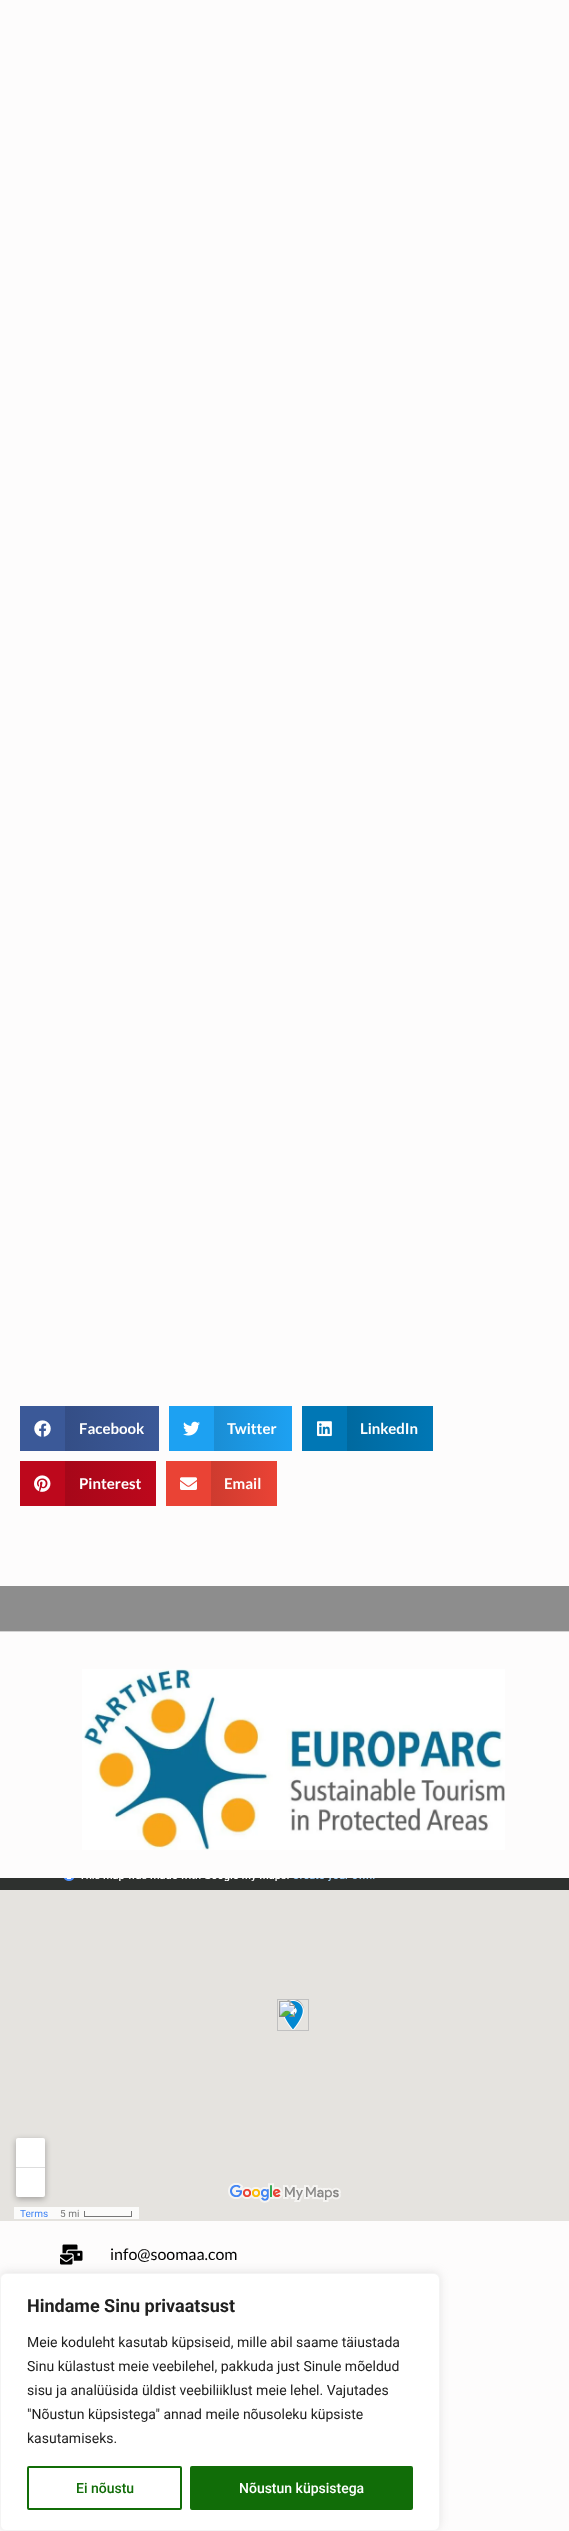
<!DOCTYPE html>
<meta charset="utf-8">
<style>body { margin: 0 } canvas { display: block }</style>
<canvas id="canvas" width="569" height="2531"></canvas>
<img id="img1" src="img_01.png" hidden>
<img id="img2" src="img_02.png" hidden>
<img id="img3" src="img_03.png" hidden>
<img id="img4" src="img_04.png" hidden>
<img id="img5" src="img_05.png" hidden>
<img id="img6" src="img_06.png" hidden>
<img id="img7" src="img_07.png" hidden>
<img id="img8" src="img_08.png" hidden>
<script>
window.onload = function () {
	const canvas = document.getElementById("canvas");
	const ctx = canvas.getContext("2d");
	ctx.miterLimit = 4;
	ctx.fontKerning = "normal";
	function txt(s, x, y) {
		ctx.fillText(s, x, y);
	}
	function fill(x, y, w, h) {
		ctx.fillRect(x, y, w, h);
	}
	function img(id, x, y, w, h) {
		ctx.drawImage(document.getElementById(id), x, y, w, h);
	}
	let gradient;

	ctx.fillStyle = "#FDFCFC";
	fill(0, 0, 569, 2531);
	ctx.fillStyle = "#3B5998";
	fill(20, 1406, 45, 45);
	img("img1", 34, 1420, 17, 17);
	gradient = ctx.createLinearGradient(65, 1429, 159, 1429);
	gradient.addColorStop(0, "#344E86");
	gradient.addColorStop(1, "#3B5998");
	ctx.fillStyle = gradient;
	fill(65, 1406, 94, 45);
	ctx.fillStyle = "#1DA1F2";
	fill(169, 1406, 45, 45);
	img("img2", 183, 1421, 17, 15);
	gradient = ctx.createLinearGradient(214, 1429, 292, 1429);
	gradient.addColorStop(0, "#1A8ED5");
	gradient.addColorStop(1, "#1DA1F2");
	ctx.fillStyle = gradient;
	fill(214, 1406, 78, 45);
	ctx.fillStyle = "#0077B5";
	fill(302, 1406, 45, 45);
	img("img3", 317, 1421, 15, 16);
	gradient = ctx.createLinearGradient(347, 1429, 433, 1429);
	gradient.addColorStop(0, "#00699F");
	gradient.addColorStop(1, "#0077B5");
	ctx.fillStyle = gradient;
	fill(347, 1406, 86, 45);
	ctx.fillStyle = "#BD081C";
	fill(20, 1461, 45, 45);
	img("img4", 34, 1475, 17, 17);
	gradient = ctx.createLinearGradient(65, 1484, 156, 1484);
	gradient.addColorStop(0, "#A60719");
	gradient.addColorStop(1, "#BD081C");
	ctx.fillStyle = gradient;
	fill(65, 1461, 91, 45);
	ctx.fillStyle = "#EA4335";
	fill(166, 1461, 45, 45);
	img("img5", 180, 1477, 17, 13);
	gradient = ctx.createLinearGradient(211, 1484, 277, 1484);
	gradient.addColorStop(0, "#CE3B2F");
	gradient.addColorStop(1, "#EA4335");
	ctx.fillStyle = gradient;
	fill(211, 1461, 66, 45);
	ctx.fillStyle = "#8D8D8D";
	fill(0, 1586, 569, 45);
	ctx.fillStyle = "#D3D3D3";
	fill(0, 1631, 569, 1);
	img("img6", 82, 1669, 423, 181);
	img("img7", 0, 1878, 569, 343);
	img("img8", 60, 2244, 23, 21);
	ctx.fillStyle = "rgba(172, 171, 171, 0.3)";
	ctx.filter = "blur(5px)";
	ctx.beginPath();
	ctx.roundRect(0, 2272, 440, 258, 6);
	ctx.fill();
	ctx.filter = "none";
	ctx.fillStyle = "#FFFFFF";
	ctx.beginPath();
	ctx.roundRect(0.5, 2273.5, 439, 257, 5.5);
	ctx.fill();
	ctx.strokeStyle = "#F4F4F4";
	ctx.stroke();
	ctx.beginPath();
	ctx.roundRect(28, 2467, 153, 42, 1);
	ctx.strokeStyle = "#116D08";
	ctx.lineWidth = 2;
	ctx.stroke();
	ctx.fillStyle = "#116D08";
	ctx.beginPath();
	ctx.roundRect(191, 2467, 221, 42, 1);
	ctx.fill();
	ctx.stroke();
	ctx.font = "bold 15px Lato";
	ctx.fillStyle = "#FFFFFF";
	txt("Facebook", 79, 1434);
	txt("Twitter", 227, 1434);
	txt("LinkedIn", 360, 1434);
	txt("Pinterest", 79, 1489);
	txt("Email", 224, 1489);
	ctx.font = "16px Lato";
	ctx.fillStyle = "#000000";
	txt("info@soomaa.com", 110, 2260);
	ctx.font = "bold 18px Roboto";
	ctx.fillStyle = "#212121";
	txt("Hindame Sinu privaatsust", 27, 2312);
	ctx.font = "14px Roboto";
	txt("Meie koduleht kasutab küpsiseid, mille abil saame täiustada", 27, 2347);
	txt("Sinu külastust meie veebilehel, pakkuda just Sinule mõeldud", 27, 2371);
	txt("sisu ja analüüsida üldist veebiliiklust meie lehel. Vajutades", 27, 2395);
	txt("\"Nõustun küpsistega\" annad meile nõusoleku küpsiste", 27, 2419);
	txt("kasutamiseks.", 27, 2443);
	ctx.font = "500 14px Roboto";
	ctx.fillStyle = "#116D08";
	txt("Ei nõustu", 76, 2493);
	ctx.fillStyle = "#FFFFFF";
	txt("Nõustun küpsistega", 239, 2493);
};
</script>
